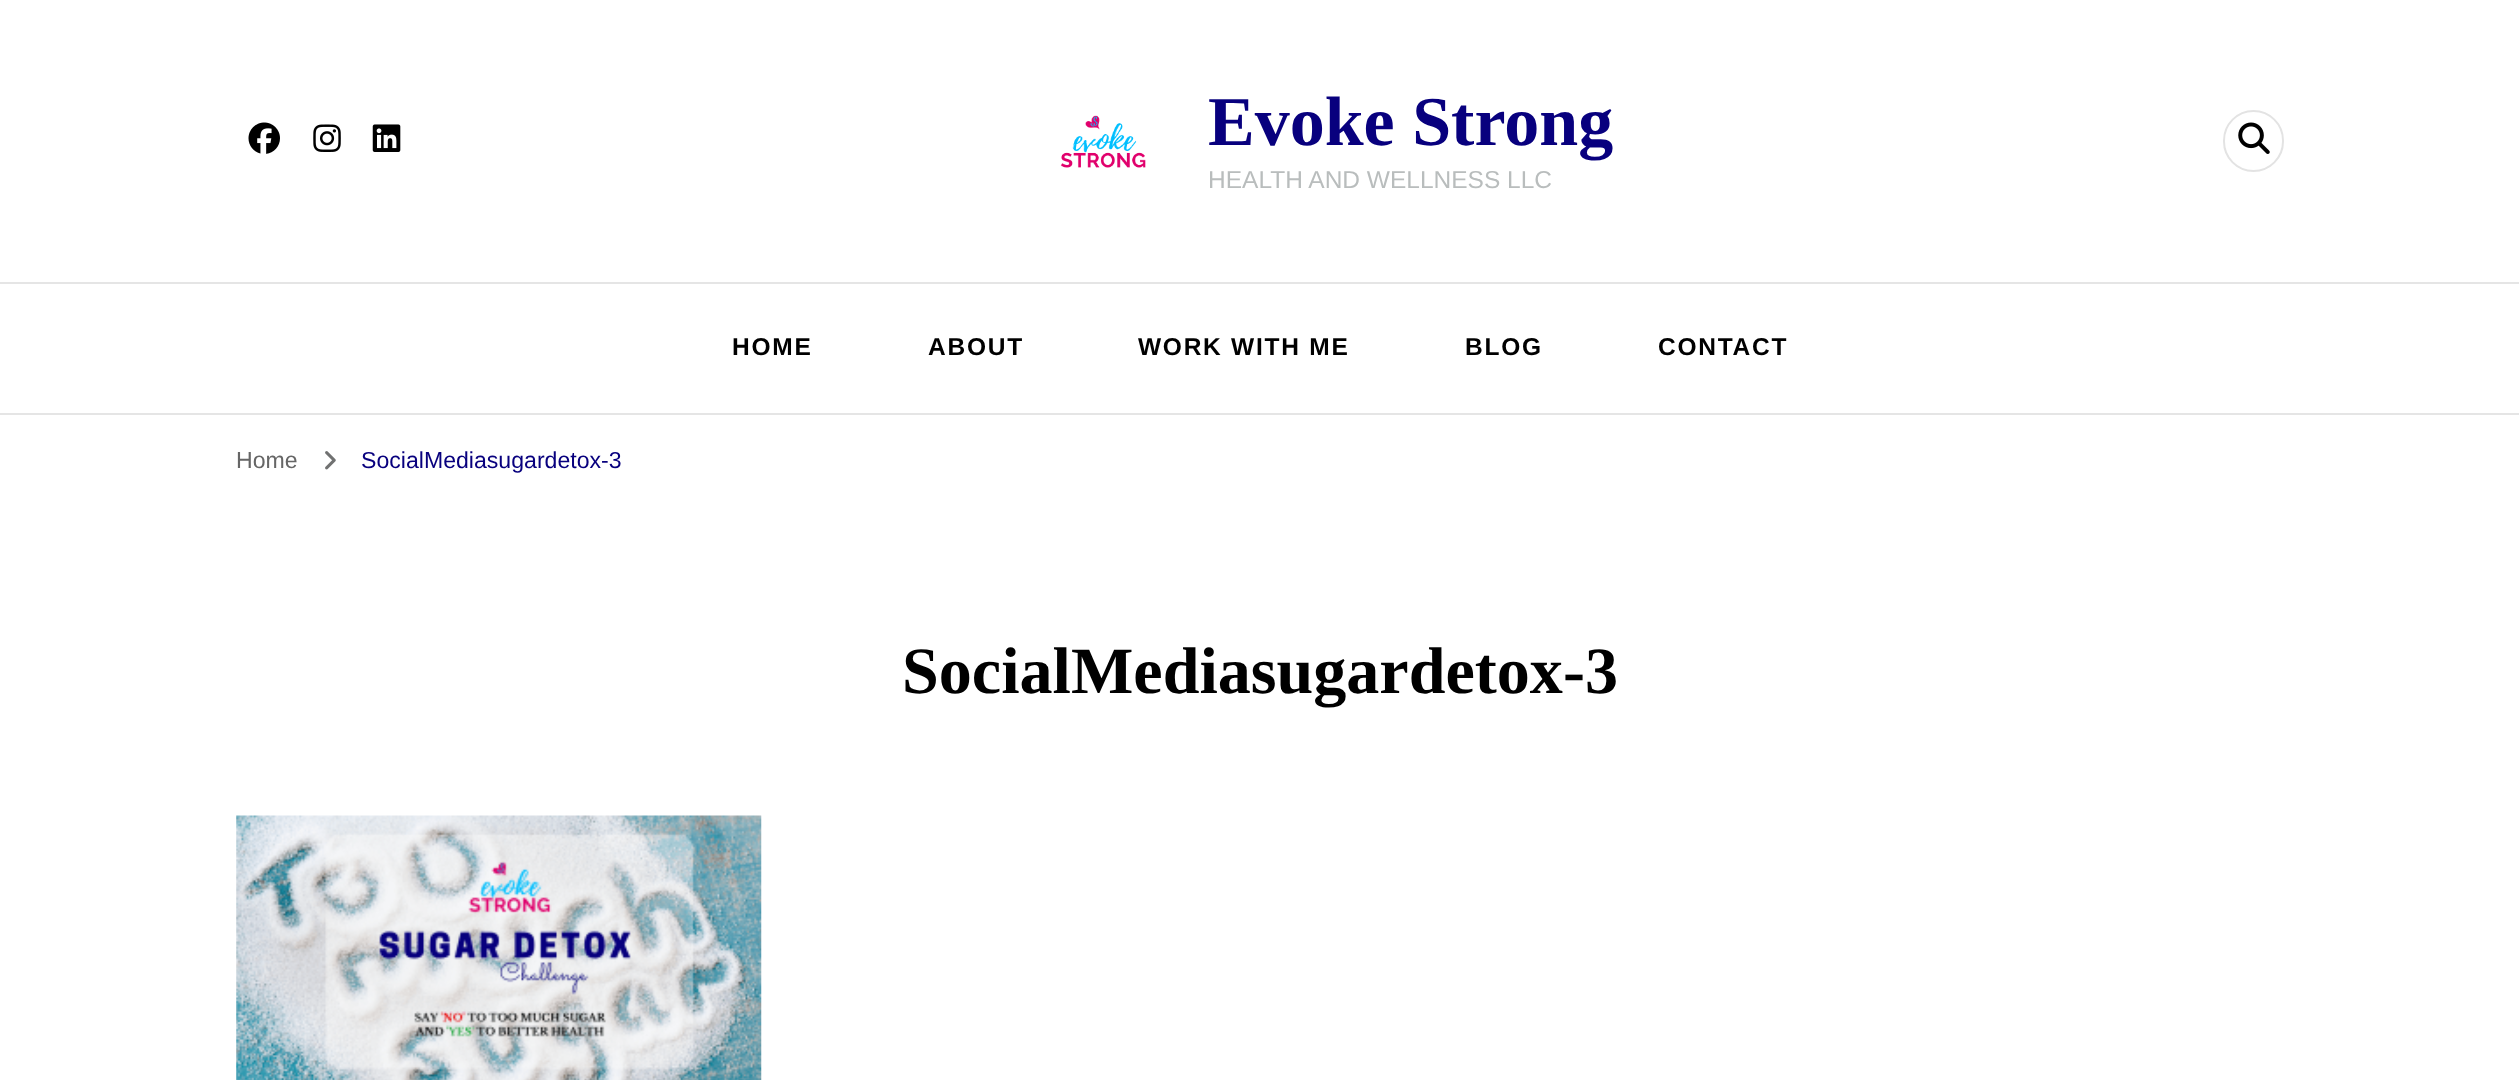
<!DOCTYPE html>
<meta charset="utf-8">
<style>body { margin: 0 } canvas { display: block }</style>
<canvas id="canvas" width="2519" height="1080"></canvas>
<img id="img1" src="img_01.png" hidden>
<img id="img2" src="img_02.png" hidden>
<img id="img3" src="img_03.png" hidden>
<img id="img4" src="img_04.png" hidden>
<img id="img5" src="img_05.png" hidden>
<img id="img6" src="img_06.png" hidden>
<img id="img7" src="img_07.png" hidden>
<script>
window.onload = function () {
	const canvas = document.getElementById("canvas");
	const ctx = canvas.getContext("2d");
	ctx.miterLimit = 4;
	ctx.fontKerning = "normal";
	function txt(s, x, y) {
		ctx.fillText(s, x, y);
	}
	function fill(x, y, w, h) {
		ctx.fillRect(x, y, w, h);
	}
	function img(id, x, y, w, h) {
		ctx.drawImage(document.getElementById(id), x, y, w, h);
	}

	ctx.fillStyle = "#FFFFFF";
	fill(0, 0, 2519, 1080);
	ctx.fillStyle = "#E5E5E5";
	fill(0, 413, 2519, 2);
	fill(0, 282, 2519, 2);
	img("img1", 248, 122, 32, 32);
	img("img2", 313, 124, 28, 28);
	img("img3", 372, 124, 29, 28);
	img("img4", 1060, 115, 86, 53);
	ctx.beginPath();
	ctx.roundRect(2224, 111, 59, 60, 29.5);
	ctx.strokeStyle = "#E3E3E3";
	ctx.lineWidth = 2;
	ctx.stroke();
	img("img5", 2238, 122, 32, 32);
	img("img6", 325, 451, 11, 19);
	img("img7", 236, 815, 526, 265);
	ctx.font = "bold 70px Liberation Serif";
	ctx.fillStyle = "#08007E";
	txt("Evoke Strong", 1208, 145);
	ctx.font = "24.5px Liberation Sans";
	ctx.fillStyle = "#B9BDBD";
	txt("HEALTH AND WELLNESS LLC", 1208, 188);
	ctx.letterSpacing = "1.75px";
	ctx.font = "bold 24.5px Liberation Sans";
	ctx.fillStyle = "#000000";
	txt("HOME", 732, 355);
	txt("ABOUT", 928, 355);
	txt("WORK WITH ME", 1138, 355);
	txt("BLOG", 1465, 355);
	txt("CONTACT", 1658, 355);
	ctx.letterSpacing = "0px";
	ctx.font = "23.1px Liberation Sans";
	ctx.fillStyle = "#666666";
	txt("Home", 236, 468);
	ctx.fillStyle = "#08007E";
	txt("SocialMediasugardetox-3", 361, 468);
	ctx.font = "bold 66.1px Liberation Serif";
	ctx.fillStyle = "#000000";
	txt("SocialMediasugardetox-3", 902, 693);
};
</script>
